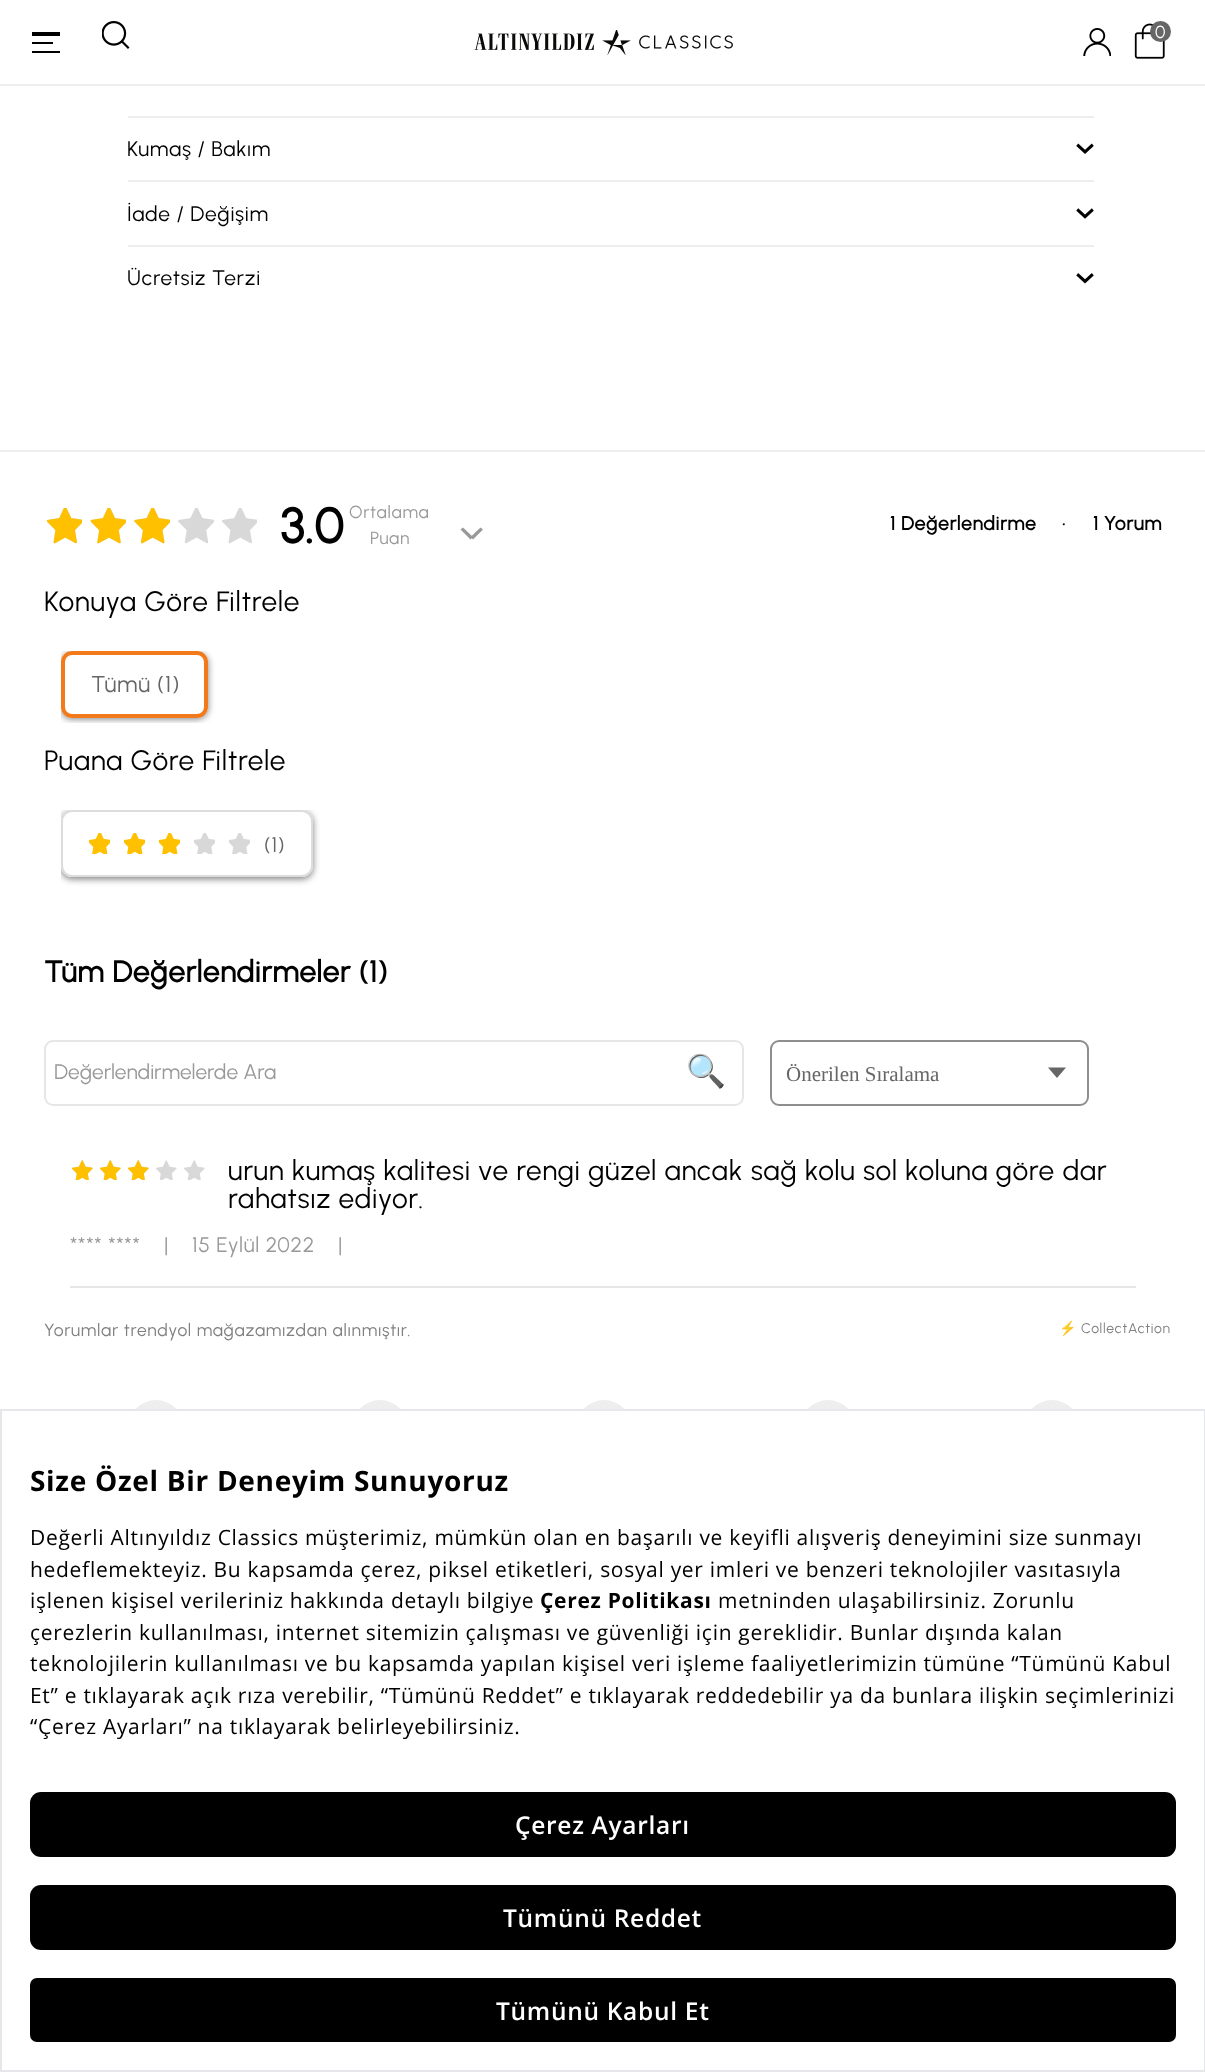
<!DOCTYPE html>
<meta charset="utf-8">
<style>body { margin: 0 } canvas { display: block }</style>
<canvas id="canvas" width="1205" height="2072"></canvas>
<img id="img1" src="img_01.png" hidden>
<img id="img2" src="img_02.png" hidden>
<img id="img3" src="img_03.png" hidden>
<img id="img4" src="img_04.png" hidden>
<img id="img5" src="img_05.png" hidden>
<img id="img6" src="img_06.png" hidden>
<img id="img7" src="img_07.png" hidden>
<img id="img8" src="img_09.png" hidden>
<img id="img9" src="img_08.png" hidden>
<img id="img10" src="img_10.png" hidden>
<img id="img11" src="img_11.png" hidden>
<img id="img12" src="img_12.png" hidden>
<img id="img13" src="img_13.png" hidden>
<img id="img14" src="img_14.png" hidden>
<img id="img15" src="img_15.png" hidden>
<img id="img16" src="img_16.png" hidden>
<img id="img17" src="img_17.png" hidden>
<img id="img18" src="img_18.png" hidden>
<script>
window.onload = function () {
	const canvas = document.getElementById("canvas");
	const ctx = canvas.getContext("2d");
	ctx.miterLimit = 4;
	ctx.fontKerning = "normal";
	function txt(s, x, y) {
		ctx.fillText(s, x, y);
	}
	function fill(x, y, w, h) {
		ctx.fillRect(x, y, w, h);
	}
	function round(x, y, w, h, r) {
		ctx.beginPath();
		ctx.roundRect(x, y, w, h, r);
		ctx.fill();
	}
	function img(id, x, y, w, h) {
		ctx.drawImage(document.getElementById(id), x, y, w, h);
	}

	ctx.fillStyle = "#FFFFFF";
	fill(0, 0, 1205, 2072);
	ctx.fillStyle = "#EEEEEE";
	fill(0, 84, 1205, 2);
	ctx.fillStyle = "#000000";
	fill(32, 32, 28, 4);
	fill(32, 42, 21, 2);
	fill(32, 51, 28, 2);
	img("img1", 474, 30, 259, 25);
	img("img2", 102, 21, 28, 28);
	img("img3", 1083, 28, 28, 28);
	img("img4", 1134, 23, 31, 36);
	ctx.fillStyle = "#666666";
	ctx.beginPath();
	ctx.arc(1160.5, 31.5, 10.5, 0, Math.PI * 2);
	ctx.fill();
	ctx.fillStyle = "#EEEEEE";
	fill(128, 116, 966, 2);
	img("img5", 1076, 143, 18, 11);
	fill(128, 180, 966, 2);
	img("img6", 1076, 208, 18, 11);
	fill(128, 245, 966, 2);
	img("img7", 1076, 273, 18, 11);
	fill(0, 450, 1205, 2);
	img("img8", 47, 508, 35, 36);
	img("img9", 46, 508, 36, 36);
	img("img10", 90, 508, 36, 36);
	img("img11", 90, 508, 36, 36);
	img("img12", 134, 508, 36, 36);
	img("img13", 134, 508, 36, 36);
	img("img14", 178, 508, 36, 36);
	img("img8", 222, 508, 35, 36);
	ctx.fillStyle = "#999999";
	ctx.beginPath();
	ctx.moveTo(480.5, 527.5);
	ctx.lineTo(483, 529.5);
	ctx.lineTo(473, 539.5);
	ctx.lineTo(470.5, 537);
	ctx.closePath();
	ctx.fill();
	ctx.beginPath();
	ctx.moveTo(463, 527.5);
	ctx.lineTo(473, 537);
	ctx.lineTo(470.5, 539.5);
	ctx.lineTo(460.5, 529.5);
	ctx.closePath();
	ctx.fill();
	ctx.save();
	ctx.beginPath();
	ctx.rect(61, 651, 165, 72);
	ctx.clip();
	ctx.beginPath();
	ctx.moveTo(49, 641);
	ctx.lineTo(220, 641);
	ctx.lineTo(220, 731);
	ctx.lineTo(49, 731);
	ctx.closePath();
	ctx.moveTo(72, 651);
	ctx.lineTo(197, 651);
	ctx.bezierCurveTo(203, 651, 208, 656, 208, 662);
	ctx.lineTo(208, 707);
	ctx.bezierCurveTo(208, 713, 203, 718, 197, 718);
	ctx.lineTo(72, 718);
	ctx.bezierCurveTo(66, 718, 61, 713, 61, 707);
	ctx.lineTo(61, 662);
	ctx.bezierCurveTo(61, 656, 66, 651, 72, 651);
	ctx.closePath();
	ctx.clip("evenodd");
	ctx.fillStyle = "rgba(0, 0, 0, 0.5)";
	ctx.filter = "blur(3.5px)";
	ctx.beginPath();
	ctx.roundRect(61, 653, 147, 66, 11);
	ctx.fill();
	ctx.filter = "none";
	ctx.restore();
	ctx.beginPath();
	ctx.roundRect(63, 653, 143, 63, 9);
	ctx.strokeStyle = "#F27A1A";
	ctx.lineWidth = 4;
	ctx.stroke();
	ctx.save();
	ctx.beginPath();
	ctx.rect(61, 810, 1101, 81);
	ctx.clip();
	ctx.beginPath();
	ctx.moveTo(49, 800);
	ctx.lineTo(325, 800);
	ctx.lineTo(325, 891);
	ctx.lineTo(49, 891);
	ctx.closePath();
	ctx.moveTo(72, 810);
	ctx.lineTo(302, 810);
	ctx.bezierCurveTo(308, 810, 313, 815, 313, 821);
	ctx.lineTo(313, 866);
	ctx.bezierCurveTo(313, 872, 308, 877, 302, 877);
	ctx.lineTo(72, 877);
	ctx.bezierCurveTo(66, 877, 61, 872, 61, 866);
	ctx.lineTo(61, 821);
	ctx.bezierCurveTo(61, 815, 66, 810, 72, 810);
	ctx.closePath();
	ctx.clip("evenodd");
	ctx.fillStyle = "rgba(0, 0, 0, 0.5)";
	ctx.filter = "blur(3.5px)";
	ctx.beginPath();
	ctx.roundRect(61, 812, 252, 67, 11);
	ctx.fill();
	ctx.filter = "none";
	ctx.restore();
	ctx.beginPath();
	ctx.roundRect(62, 811, 250, 65, 10);
	ctx.strokeStyle = "#DCDCDC";
	ctx.lineWidth = 2;
	ctx.stroke();
	img("img15", 89, 833, 21, 21);
	img("img15", 124, 833, 21, 21);
	img("img15", 159, 833, 21, 21);
	img("img16", 194, 833, 21, 21);
	img("img16", 229, 833, 21, 21);
	ctx.beginPath();
	ctx.roundRect(45, 1041, 698, 64, 8);
	ctx.strokeStyle = "#E6E6E6";
	ctx.stroke();
	ctx.beginPath();
	ctx.roundRect(771, 1041, 317, 64, 8);
	ctx.strokeStyle = "#8E8E8D";
	ctx.stroke();
	ctx.fillStyle = "#666666";
	ctx.beginPath();
	ctx.moveTo(1048, 1067.5);
	ctx.lineTo(1066, 1067.5);
	ctx.lineTo(1057, 1078);
	ctx.closePath();
	ctx.fill();
	ctx.fillStyle = "#E6E6E6";
	fill(70, 1286, 1066, 2);
	img("img17", 72, 1160, 21, 20);
	img("img18", 72, 1160, 21, 20);
	img("img17", 100, 1160, 21, 20);
	img("img18", 100, 1160, 21, 20);
	img("img17", 128, 1160, 21, 20);
	img("img18", 128, 1160, 21, 20);
	img("img17", 156, 1160, 21, 20);
	img("img17", 184, 1160, 21, 20);
	ctx.fillStyle = "#EEEEEE";
	ctx.beginPath();
	ctx.arc(156, 1428, 28, 0, Math.PI * 2);
	ctx.fill();
	ctx.beginPath();
	ctx.arc(380, 1428, 28, 0, Math.PI * 2);
	ctx.fill();
	ctx.beginPath();
	ctx.arc(604, 1428, 28, 0, Math.PI * 2);
	ctx.fill();
	ctx.beginPath();
	ctx.arc(828, 1428, 28, 0, Math.PI * 2);
	ctx.fill();
	ctx.beginPath();
	ctx.arc(1052, 1428, 28, 0, Math.PI * 2);
	ctx.fill();
	ctx.fillStyle = "#FFFFFF";
	fill(128, 1411, 952, 45);
	ctx.strokeStyle = "#E5E7EB";
	ctx.strokeRect(1, 1410, 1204, 661);
	ctx.fillStyle = "#000000";
	round(30, 1792, 1146, 65, 11);
	round(30, 1885, 1146, 65, 11);
	round(30, 1978, 1146, 64, 7);
	ctx.letterSpacing = "0.7px";
	ctx.font = "17.5px Urbanist";
	ctx.fillStyle = "#FFFFFF";
	txt("0", 1155, 38);
	ctx.font = "21px Urbanist";
	ctx.fillStyle = "#000000";
	txt("Kumaş / Bakım", 127, 156);
	txt("İade / Değişim", 127, 221);
	txt("Ücretsiz Terzi", 127, 285);
	ctx.font = "bold 49px Urbanist";
	txt("3.0", 280, 543);
	ctx.font = "17.5px Urbanist";
	ctx.fillStyle = "#999999";
	txt("Ortalama", 349, 518);
	txt("Puan", 370, 544);
	ctx.font = "bold 19.25px Urbanist";
	ctx.fillStyle = "#000000";
	txt("1 Değerlendirme", 890, 530);
	ctx.font = "19.25px Urbanist";
	txt("•", 1062, 530);
	ctx.font = "bold 19.25px Urbanist";
	txt("1 Yorum", 1093, 530);
	ctx.font = "28px Urbanist";
	txt("Konuya Göre Filtrele", 44, 611);
	ctx.font = "23px Urbanist";
	ctx.fillStyle = "#666666";
	txt("Tümü (1)", 91, 692);
	ctx.font = "28px Urbanist";
	ctx.fillStyle = "#000000";
	txt("Puana Göre Filtrele", 44, 770);
	ctx.font = "21px Urbanist";
	ctx.fillStyle = "#666666";
	txt("(1)", 264, 852);
	ctx.font = "bold 29.75px Urbanist";
	ctx.fillStyle = "#000000";
	txt("Tüm Değerlendirmeler (1)", 44, 982);
	ctx.letterSpacing = "0px";
	ctx.font = "21px Urbanist";
	ctx.fillStyle = "#999999";
	txt("Değerlendirmelerde Ara", 54, 1079);
	ctx.letterSpacing = "0.7px";
	ctx.font = "32px 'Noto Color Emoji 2'";
	ctx.fillStyle = "#FF8C00";
	txt("🔍", 686, 1082);
	ctx.letterSpacing = "0px";
	ctx.font = "21px Liberation Serif";
	ctx.fillStyle = "#666666";
	txt("Önerilen Sıralama", 786, 1081);
	ctx.letterSpacing = "0.7px";
	ctx.font = "28px Urbanist";
	ctx.fillStyle = "#000000";
	txt("urun kumaş kalitesi ve rengi güzel ancak sağ kolu sol koluna göre dar", 228, 1180);
	txt("rahatsız ediyor.", 228, 1208);
	ctx.font = "21px Urbanist";
	ctx.fillStyle = "#999999";
	txt("**** ****", 70, 1252);
	txt("|", 164, 1252);
	txt("15 Eylül 2022", 192, 1252);
	txt("|", 338, 1252);
	ctx.font = "17.5px Urbanist";
	ctx.fillStyle = "#808080";
	txt("Yorumlar trendyol mağazamızdan alınmıştır.", 44, 1336);
	ctx.font = "14px Noto Color Emoji";
	txt("⚡", 1059, 1333);
	ctx.font = "14px Urbanist";
	txt("CollectAction", 1081, 1333);
	ctx.font = "bold 28px Open Sans";
	ctx.fillStyle = "#000000";
	txt("Size Özel Bir Deneyim Sunuyoruz", 30, 1491);
	ctx.font = "21px Open Sans";
	txt("Değerli Altınyıldız Classics müşterimiz, mümkün olan en başarılı ve keyifli alışveriş deneyimini size sunmayı", 30, 1545);
	txt("hedeflemekteyiz. Bu kapsamda çerez, piksel etiketleri, sosyal yer imleri ve benzeri teknolojiler vasıtasıyla", 30, 1577);
	txt("işlenen kişisel verileriniz hakkında detaylı bilgiye", 30, 1608);
	ctx.font = "bold 21px Open Sans";
	txt("Çerez Politikası", 540, 1608);
	ctx.font = "21px Open Sans";
	txt("metninden ulaşabilirsiniz. Zorunlu", 718, 1608);
	txt("çerezlerin kullanılması, internet sitemizin çalışması ve güvenliği için gereklidir. Bunlar dışında kalan", 30, 1640);
	txt("teknolojilerin kullanılması ve bu kapsamda yapılan kişisel veri işleme faaliyetlerimizin tümüne “Tümünü Kabul", 30, 1671);
	txt("Et” e tıklayarak açık rıza verebilir, “Tümünü Reddet” e tıklayarak reddedebilir ya da bunlara ilişkin seçimlerinizi", 30, 1703);
	txt("“Çerez Ayarları” na tıklayarak belirleyebilirsiniz.", 30, 1734);
	ctx.font = "600 24.5px Open Sans";
	ctx.fillStyle = "#FFFFFF";
	txt("Çerez Ayarları", 515, 1834);
	txt("Tümünü Reddet", 503, 1927);
	txt("Tümünü Kabul Et", 496, 2020);
};
</script>
